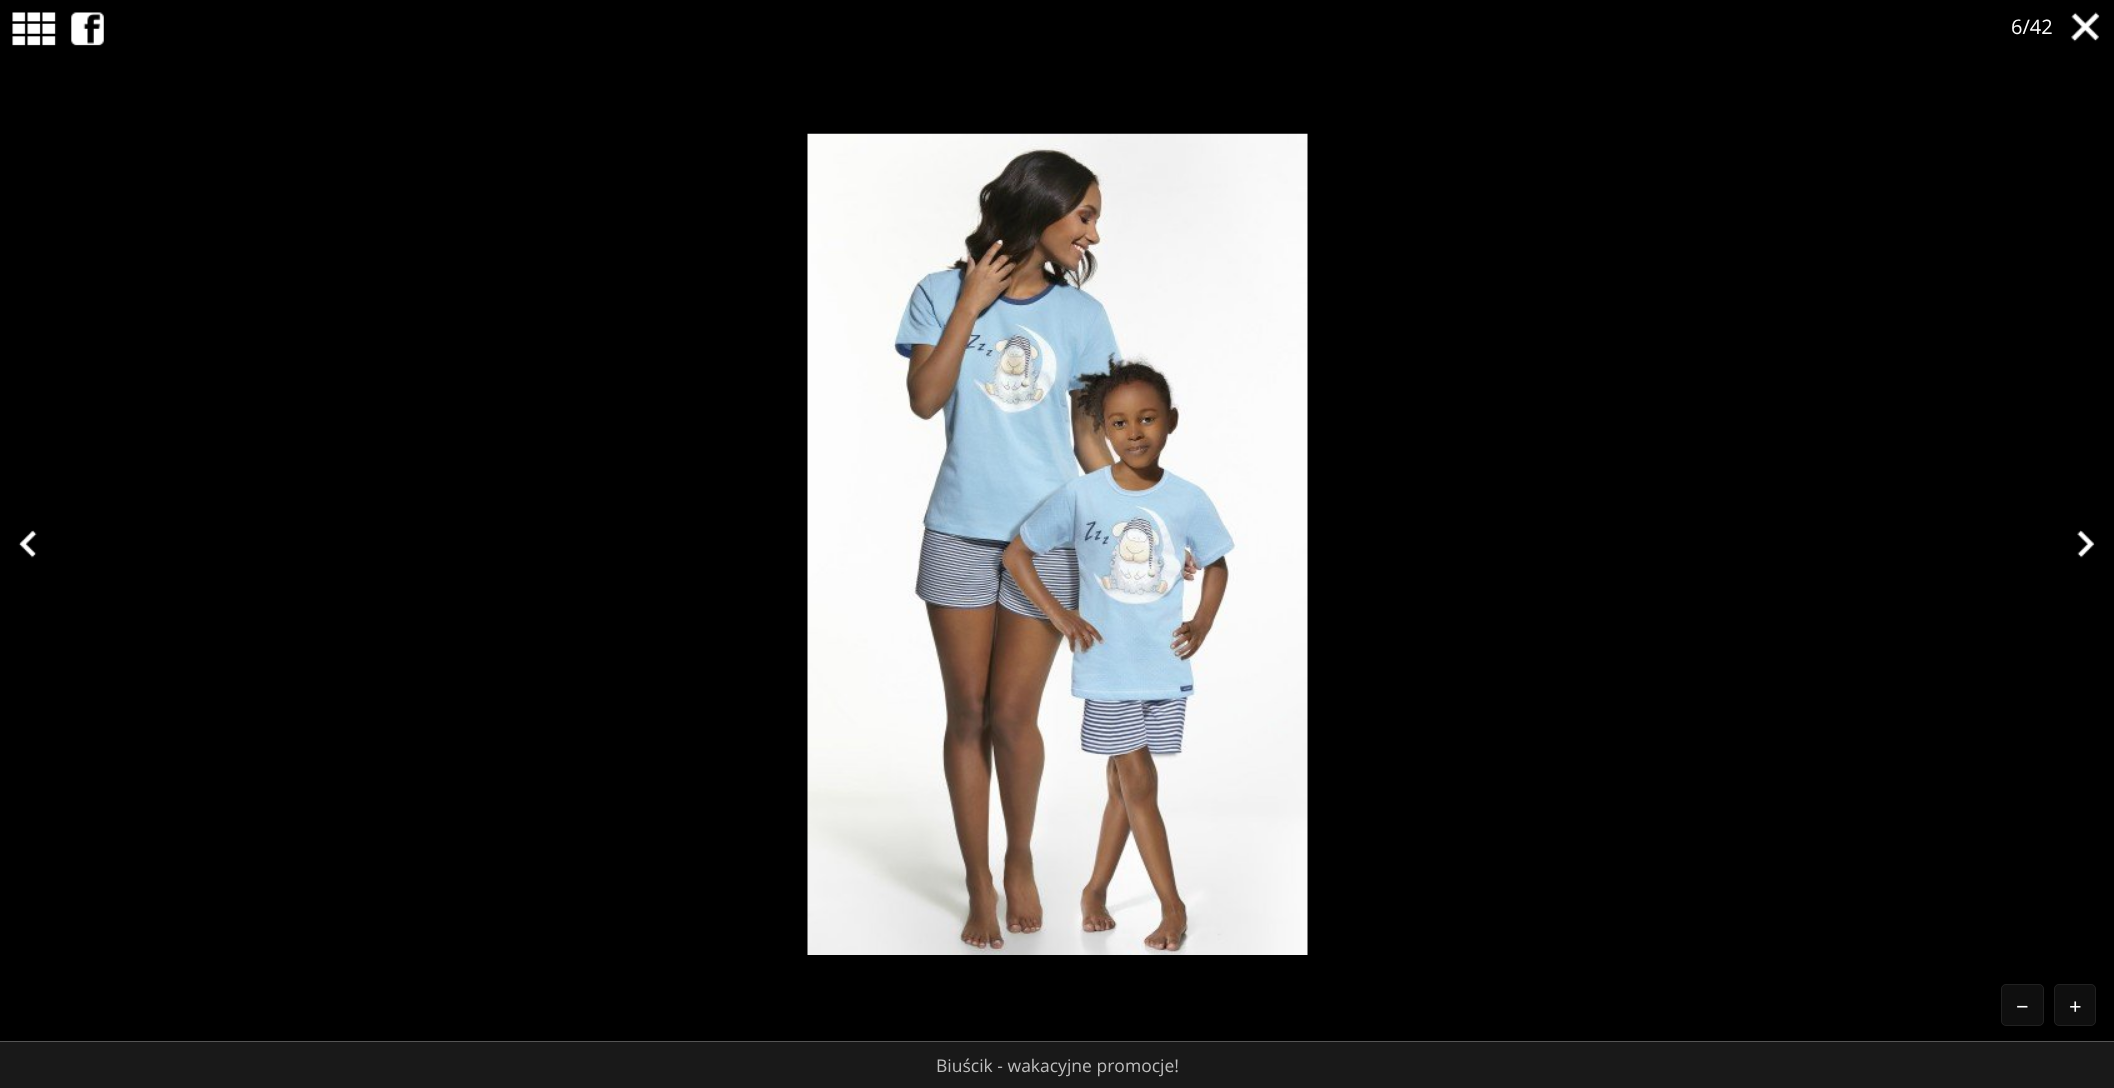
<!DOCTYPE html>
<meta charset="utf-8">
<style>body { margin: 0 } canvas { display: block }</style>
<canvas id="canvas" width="2114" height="1088"></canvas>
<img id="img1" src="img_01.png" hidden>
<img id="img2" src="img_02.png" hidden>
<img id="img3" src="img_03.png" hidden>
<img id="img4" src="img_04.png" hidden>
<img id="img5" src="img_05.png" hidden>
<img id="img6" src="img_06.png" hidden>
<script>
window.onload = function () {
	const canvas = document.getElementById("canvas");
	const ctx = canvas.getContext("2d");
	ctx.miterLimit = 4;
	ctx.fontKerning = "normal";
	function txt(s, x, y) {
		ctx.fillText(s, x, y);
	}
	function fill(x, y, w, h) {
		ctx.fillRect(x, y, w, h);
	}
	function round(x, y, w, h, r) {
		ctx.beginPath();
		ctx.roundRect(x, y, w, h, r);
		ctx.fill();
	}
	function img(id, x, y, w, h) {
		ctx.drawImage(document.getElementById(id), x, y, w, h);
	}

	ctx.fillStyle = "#000000";
	fill(0, 0, 2114, 1088);
	img("img1", 2071, 12, 29, 30);
	img("img2", 18, 530, 19, 28);
	img("img3", 807, 133, 501, 822);
	img("img4", 2077, 530, 18, 28);
	img("img5", 12, 12, 45, 34);
	img("img6", 71, 12, 33, 34);
	ctx.fillStyle = "#0F0F0F";
	round(2001, 984, 43, 42, 5);
	ctx.beginPath();
	ctx.roundRect(2001.5, 984.5, 42, 41, 4.5);
	ctx.strokeStyle = "rgba(255, 255, 255, 0.08)";
	ctx.stroke();
	round(2054, 984, 42, 42, 5);
	ctx.beginPath();
	ctx.roundRect(2054.5, 984.5, 41, 41, 4.5);
	ctx.stroke();
	ctx.fillStyle = "#191919";
	fill(0, 1042, 2114, 46);
	ctx.fillStyle = "#555555";
	fill(0, 1041, 2114, 1);
	ctx.font = "20px Open Sans";
	ctx.fillStyle = "#FFFFFF";
	txt("6/42", 2011, 34);
	ctx.font = "bold 22px Liberation Serif";
	txt("−", 2016, 1014);
	txt("+", 2069, 1014);
	ctx.font = "17.5px Open Sans";
	ctx.fillStyle = "#BCBCBC";
	txt("Biuścik - wakacyjne promocje!", 936, 1072);
};
</script>
